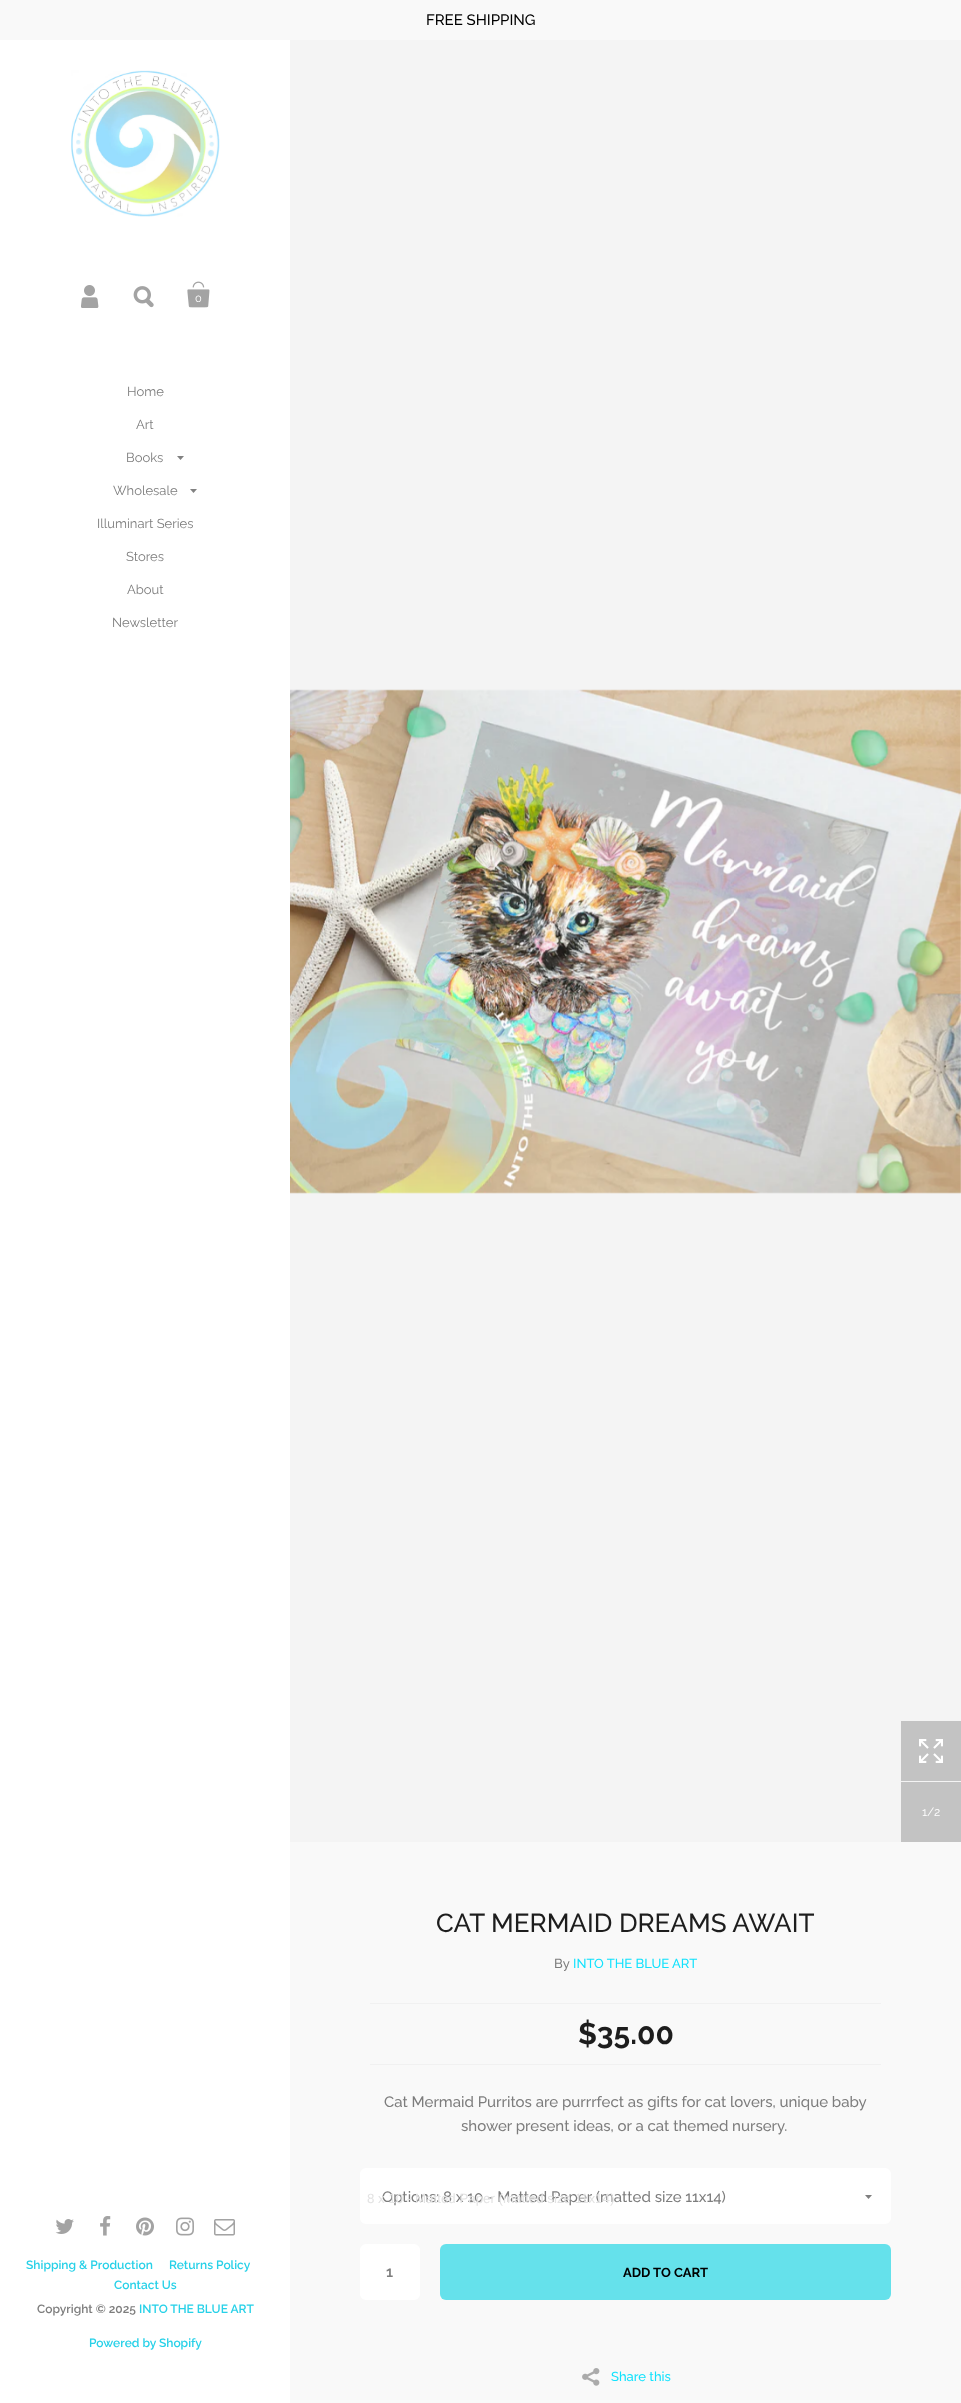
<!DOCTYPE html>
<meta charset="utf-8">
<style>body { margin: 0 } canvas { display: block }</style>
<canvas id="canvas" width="961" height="2403"></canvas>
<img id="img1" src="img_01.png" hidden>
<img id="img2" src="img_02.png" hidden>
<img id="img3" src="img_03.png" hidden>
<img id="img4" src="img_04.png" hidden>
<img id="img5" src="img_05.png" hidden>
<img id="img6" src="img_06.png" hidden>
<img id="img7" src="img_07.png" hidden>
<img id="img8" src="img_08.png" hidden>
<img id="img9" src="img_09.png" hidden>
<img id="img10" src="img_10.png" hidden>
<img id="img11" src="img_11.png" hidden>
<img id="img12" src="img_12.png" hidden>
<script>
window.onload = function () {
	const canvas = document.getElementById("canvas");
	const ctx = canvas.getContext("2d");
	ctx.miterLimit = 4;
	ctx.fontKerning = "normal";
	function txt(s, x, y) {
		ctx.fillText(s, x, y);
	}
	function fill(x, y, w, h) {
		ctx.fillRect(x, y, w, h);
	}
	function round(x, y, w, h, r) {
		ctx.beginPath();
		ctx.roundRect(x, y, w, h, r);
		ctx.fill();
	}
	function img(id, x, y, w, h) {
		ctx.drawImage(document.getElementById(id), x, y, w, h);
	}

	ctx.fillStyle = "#F9F9F9";
	fill(0, 0, 961, 2403);
	ctx.fillStyle = "#FFFFFF";
	fill(0, 40, 290, 2363);
	img("img1", 71, 70, 149, 147);
	img("img2", 81, 285, 18, 23);
	img("img3", 133, 286, 21, 22);
	img("img4", 187, 281, 23, 27);
	ctx.fillStyle = "#818181";
	ctx.beginPath();
	ctx.moveTo(184, 456);
	ctx.lineTo(180.5, 460);
	ctx.lineTo(177, 456);
	ctx.closePath();
	ctx.fill();
	ctx.beginPath();
	ctx.moveTo(197, 489);
	ctx.lineTo(193.5, 493);
	ctx.lineTo(190, 489);
	ctx.closePath();
	ctx.fill();
	img("img5", 55, 2219, 19, 15);
	img("img6", 100, 2216, 11, 20);
	img("img7", 136, 2217, 18, 19);
	img("img8", 176, 2217, 18, 19);
	img("img9", 214, 2219, 21, 17);
	ctx.fillStyle = "#F4F4F4";
	fill(290, 40, 671, 1802);
	ctx.fillStyle = "#C3C3C3";
	fill(901, 1721, 60, 60);
	img("img10", 919, 1739, 24, 24);
	img("img11", 290, 689, 671, 505);
	fill(901, 1782, 60, 60);
	ctx.fillStyle = "#F1F1F1";
	fill(370, 2003, 511, 1);
	fill(370, 2064, 511, 1);
	ctx.fillStyle = "#FFFFFF";
	round(360, 2168, 531, 56, 6);
	ctx.fillStyle = "#7F7F7F";
	ctx.beginPath();
	ctx.moveTo(872, 2195);
	ctx.lineTo(868.5, 2199);
	ctx.lineTo(865, 2195);
	ctx.closePath();
	ctx.fill();
	ctx.fillStyle = "#FFFFFF";
	round(360, 2244, 60, 56, 6);
	ctx.fillStyle = "#65E1EB";
	round(440, 2244, 451, 56, 6);
	img("img12", 582, 2368, 18, 18);
	ctx.font = "500 15px Raleway";
	ctx.fillStyle = "#000000";
	txt("FREE SHIPPING", 426, 25);
	ctx.font = "11px Raleway";
	ctx.fillStyle = "#FFFFFF";
	txt("0", 195, 302);
	ctx.font = "13px Raleway";
	ctx.fillStyle = "#7D7D7D";
	txt("Home", 127, 396);
	txt("Art", 136, 429);
	txt("Books", 126, 462);
	txt("Wholesale", 113, 495);
	txt("Illuminart Series", 97, 528);
	txt("Stores", 126, 561);
	txt("About", 127, 594);
	txt("Newsletter", 112, 627);
	ctx.font = "600 12px Raleway";
	ctx.fillStyle = "#27D1E8";
	txt("Shipping & Production", 26, 2269);
	txt("Returns Policy", 169, 2269);
	txt("Contact Us", 114, 2289);
	ctx.fillStyle = "#7D7D7D";
	txt("Copyright © 2025", 37, 2313);
	ctx.fillStyle = "#27D1E8";
	txt("INTO THE BLUE ART", 139, 2313);
	txt("Powered by Shopify", 89, 2347);
	ctx.font = "12px Raleway";
	ctx.fillStyle = "#FFFFFF";
	txt("1", 922, 1816);
	ctx.letterSpacing = "-2px";
	txt("/", 927, 1816);
	ctx.letterSpacing = "0px";
	txt("2", 934, 1816);
	ctx.font = "500 26px Raleway";
	ctx.fillStyle = "#1D1D1D";
	txt("CAT MERMAID DREAMS AWAIT", 436, 1932);
	ctx.font = "500 13px Raleway";
	ctx.fillStyle = "#7D7D7D";
	txt("By", 554, 1968);
	ctx.fillStyle = "#12E2FD";
	txt("INTO THE BLUE ART", 573, 1968);
	ctx.font = "bold 30px Raleway";
	ctx.fillStyle = "#1D1D1D";
	txt("$35.00", 578, 2044);
	ctx.font = "500 15px Raleway";
	ctx.fillStyle = "#7D7D7D";
	txt("Cat Mermaid Purritos are purrrfect as gifts for cat lovers, unique baby", 384, 2107);
	txt("shower present ideas, or a cat themed nursery.", 461, 2131);
	txt("Options: 8 x 10 - Matted Paper (matted size 11x14)", 382, 2202);
	ctx.font = "13.3px Liberation Sans";
	ctx.fillStyle = "#E3E3E3";
	txt("8 x 10 - Matted Paper (matted size 11x14)", 367, 2203);
	ctx.font = "600 15px Raleway";
	ctx.fillStyle = "#7D7D7D";
	txt("1", 386, 2277);
	ctx.font = "bold 13px Raleway";
	ctx.fillStyle = "#000000";
	txt("ADD TO CART", 623, 2277);
	ctx.font = "500 13px Raleway";
	ctx.fillStyle = "#12E2FD";
	txt("Share this", 611, 2381);
};
</script>
